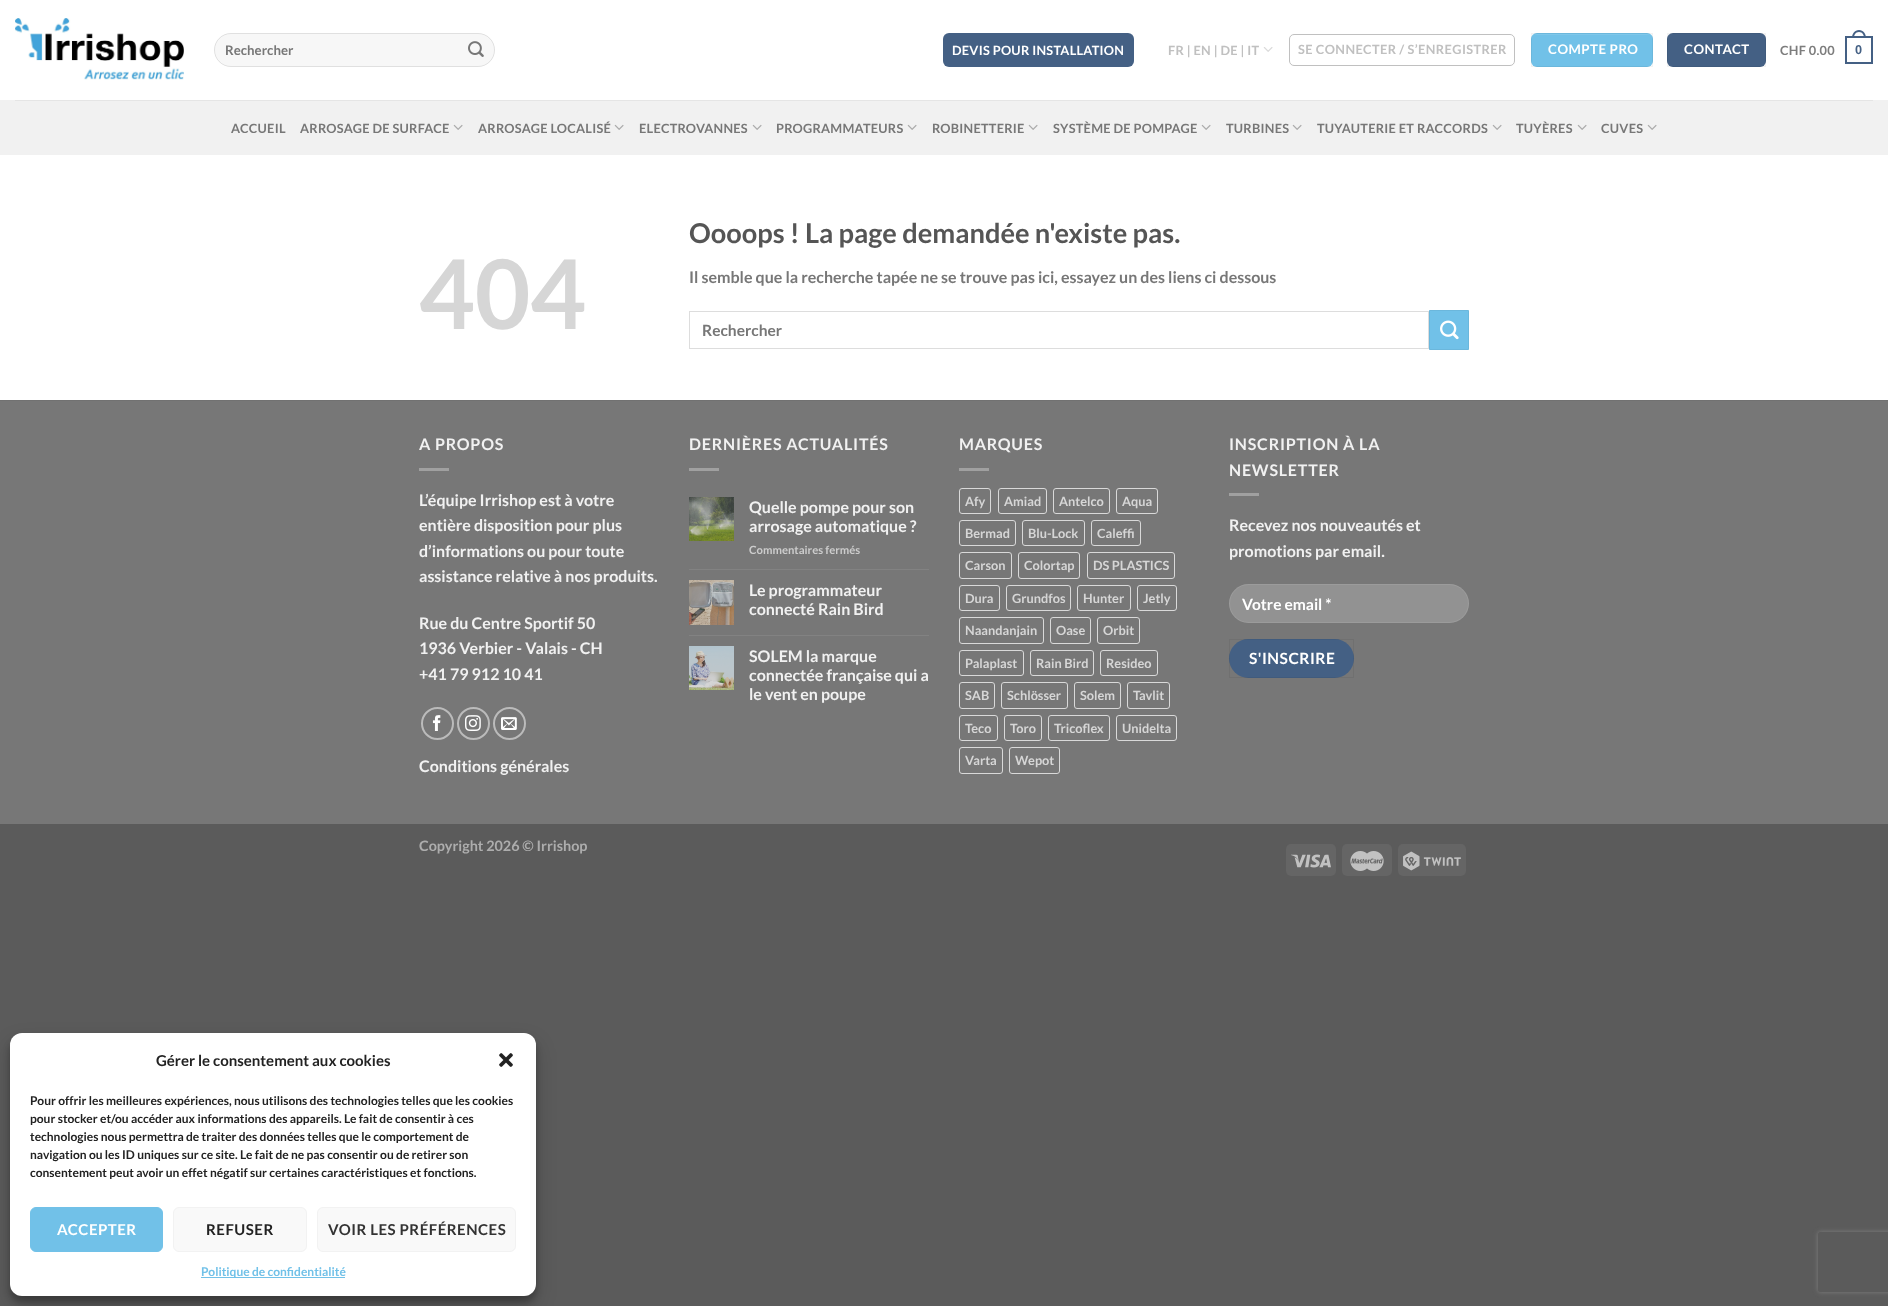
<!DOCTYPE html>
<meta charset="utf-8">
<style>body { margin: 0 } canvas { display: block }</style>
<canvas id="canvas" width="1888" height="1306"></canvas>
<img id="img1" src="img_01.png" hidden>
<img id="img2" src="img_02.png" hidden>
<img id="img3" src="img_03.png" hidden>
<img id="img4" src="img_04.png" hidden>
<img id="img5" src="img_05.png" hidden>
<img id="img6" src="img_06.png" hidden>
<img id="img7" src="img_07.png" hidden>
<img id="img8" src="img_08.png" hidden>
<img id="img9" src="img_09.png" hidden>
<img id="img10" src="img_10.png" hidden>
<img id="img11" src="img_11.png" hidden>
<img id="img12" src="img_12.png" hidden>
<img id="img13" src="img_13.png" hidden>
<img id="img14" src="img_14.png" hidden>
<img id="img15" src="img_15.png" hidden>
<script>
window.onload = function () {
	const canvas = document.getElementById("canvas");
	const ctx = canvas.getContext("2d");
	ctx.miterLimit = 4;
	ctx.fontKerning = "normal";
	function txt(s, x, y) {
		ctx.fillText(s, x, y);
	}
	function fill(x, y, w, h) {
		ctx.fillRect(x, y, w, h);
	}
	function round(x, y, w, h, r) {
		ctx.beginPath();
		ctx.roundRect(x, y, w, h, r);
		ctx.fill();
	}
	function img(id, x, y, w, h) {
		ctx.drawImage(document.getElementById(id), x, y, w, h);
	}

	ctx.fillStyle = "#5B5B5B";
	fill(0, 0, 1888, 1306);
	ctx.fillStyle = "#FFFFFF";
	fill(0, 0, 1888, 400);
	img("img1", 15, 18, 169, 62);
	ctx.fillStyle = "#F7F7F7";
	round(214, 33, 281, 34, 17);
	ctx.beginPath();
	ctx.roundRect(214.5, 33.5, 280, 33, 16.5);
	ctx.strokeStyle = "rgba(0, 0, 0, 0.09)";
	ctx.stroke();
	img("img2", 468, 41, 16, 16);
	ctx.fillStyle = "#446084";
	round(943, 33, 191, 34, 6);
	img("img3", 1263, 47, 10, 5);
	ctx.beginPath();
	ctx.roundRect(1289.5, 34.5, 225, 31, 4.5);
	ctx.strokeStyle = "#C0C0C0";
	ctx.stroke();
	ctx.fillStyle = "#71C1E8";
	round(1531, 33, 122, 34, 6);
	ctx.strokeStyle = "rgba(0, 0, 0, 0.05)";
	ctx.strokeRect(1531.5, 33.5, 121, 33);
	ctx.fillStyle = "rgba(255, 255, 255, 0.1)";
	ctx.beginPath();
	ctx.moveTo(1537, 34);
	ctx.lineTo(1534, 35);
	ctx.lineTo(1650, 35);
	ctx.lineTo(1647, 34);
	ctx.closePath();
	ctx.fill();
	ctx.fillStyle = "#446084";
	round(1667, 33, 99, 34, 6);
	ctx.strokeRect(1667.5, 33.5, 98, 33);
	ctx.strokeStyle = "#446084";
	ctx.lineWidth = 2;
	ctx.strokeRect(1846, 37, 26, 26);
	ctx.beginPath();
	ctx.moveTo(1859, 30);
	ctx.bezierCurveTo(1863.5, 30, 1866, 34, 1866, 38);
	ctx.lineTo(1852, 38);
	ctx.bezierCurveTo(1852, 34, 1854.5, 30, 1859, 30);
	ctx.closePath();
	ctx.moveTo(1859, 32);
	ctx.bezierCurveTo(1862.5, 32, 1864, 35, 1864, 38);
	ctx.lineTo(1854, 38);
	ctx.bezierCurveTo(1854, 35, 1855.5, 32, 1859, 32);
	ctx.closePath();
	ctx.fill("evenodd");
	ctx.fillStyle = "#F1F1F1";
	fill(0, 100, 1888, 55);
	ctx.fillStyle = "#E5E5E5";
	fill(15, 100, 1858, 1);
	img("img4", 453, 124, 10, 6);
	img("img4", 614, 124, 10, 6);
	img("img4", 752, 124, 10, 6);
	img("img4", 907, 124, 10, 6);
	img("img4", 1028, 124, 10, 6);
	img("img4", 1201, 124, 10, 6);
	img("img4", 1292, 124, 10, 6);
	img("img4", 1492, 124, 10, 6);
	img("img4", 1577, 124, 10, 6);
	img("img4", 1647, 124, 10, 6);
	ctx.strokeStyle = "#DDDDDD";
	ctx.lineWidth = 1;
	ctx.strokeRect(689.5, 311.5, 739, 37);
	ctx.fillStyle = "#71C1E8";
	ctx.beginPath();
	ctx.rect(1429.5, 310.5, 39, 39);
	ctx.fill();
	ctx.strokeStyle = "#6BB7DC";
	ctx.stroke();
	img("img5", 1440, 320, 19, 20);
	ctx.fillStyle = "#777777";
	fill(0, 401, 1888, 423);
	ctx.fillStyle = "#717171";
	fill(0, 400, 1888, 1);
	ctx.fillStyle = "#A0A0A0";
	fill(419, 468, 30, 3);
	ctx.beginPath();
	ctx.arc(437.5, 723.5, 15.5, 0, Math.PI * 2);
	ctx.strokeStyle = "#BBBBBB";
	ctx.lineWidth = 2;
	ctx.stroke();
	img("img6", 432, 715, 9, 16);
	ctx.beginPath();
	ctx.arc(473.5, 723.5, 15.5, 0, Math.PI * 2);
	ctx.stroke();
	img("img7", 465, 715, 16, 16);
	ctx.beginPath();
	ctx.arc(509.5, 723.5, 15.5, 0, Math.PI * 2);
	ctx.stroke();
	img("img8", 501, 717, 16, 13);
	fill(689, 468, 30, 3);
	img("img9", 689, 497, 45, 44);
	ctx.fillStyle = "#828282";
	fill(689, 569, 240, 1);
	img("img10", 689, 580, 45, 45);
	fill(689, 635, 240, 1);
	img("img11", 689, 646, 45, 44);
	ctx.fillStyle = "#A0A0A0";
	fill(959, 468, 30, 3);
	ctx.beginPath();
	ctx.roundRect(959.5, 488.5, 31, 25, 2.5);
	ctx.strokeStyle = "#D9D9D9";
	ctx.lineWidth = 1;
	ctx.stroke();
	ctx.beginPath();
	ctx.roundRect(998.5, 488.5, 48, 25, 2.5);
	ctx.stroke();
	ctx.beginPath();
	ctx.roundRect(1053.5, 488.5, 56, 25, 2.5);
	ctx.stroke();
	ctx.beginPath();
	ctx.roundRect(1116.5, 488.5, 41, 25, 2.5);
	ctx.stroke();
	ctx.beginPath();
	ctx.roundRect(959.5, 520.5, 56, 25, 2.5);
	ctx.stroke();
	ctx.beginPath();
	ctx.roundRect(1022.5, 520.5, 62, 25, 2.5);
	ctx.stroke();
	ctx.beginPath();
	ctx.roundRect(1091.5, 520.5, 49, 25, 2.5);
	ctx.stroke();
	ctx.beginPath();
	ctx.roundRect(959.5, 552.5, 52, 26, 2.5);
	ctx.stroke();
	ctx.beginPath();
	ctx.roundRect(1018.5, 552.5, 61, 26, 2.5);
	ctx.stroke();
	ctx.beginPath();
	ctx.roundRect(1087.5, 552.5, 87, 26, 2.5);
	ctx.stroke();
	ctx.beginPath();
	ctx.roundRect(959.5, 585.5, 40, 25, 2.5);
	ctx.stroke();
	ctx.beginPath();
	ctx.roundRect(1006.5, 585.5, 64, 25, 2.5);
	ctx.stroke();
	ctx.beginPath();
	ctx.roundRect(1077.5, 585.5, 53, 25, 2.5);
	ctx.stroke();
	ctx.beginPath();
	ctx.roundRect(1137.5, 585.5, 39, 25, 2.5);
	ctx.stroke();
	ctx.beginPath();
	ctx.roundRect(959.5, 617.5, 84, 26, 2.5);
	ctx.stroke();
	ctx.beginPath();
	ctx.roundRect(1050.5, 617.5, 40, 26, 2.5);
	ctx.stroke();
	ctx.beginPath();
	ctx.roundRect(1097.5, 617.5, 42, 26, 2.5);
	ctx.stroke();
	ctx.beginPath();
	ctx.roundRect(959.5, 650.5, 64, 25, 2.5);
	ctx.stroke();
	ctx.beginPath();
	ctx.roundRect(1030.5, 650.5, 63, 25, 2.5);
	ctx.stroke();
	ctx.beginPath();
	ctx.roundRect(1100.5, 650.5, 57, 25, 2.5);
	ctx.stroke();
	ctx.beginPath();
	ctx.roundRect(959.5, 682.5, 35, 26, 2.5);
	ctx.stroke();
	ctx.beginPath();
	ctx.roundRect(1001.5, 682.5, 66, 26, 2.5);
	ctx.stroke();
	ctx.beginPath();
	ctx.roundRect(1074.5, 682.5, 46, 26, 2.5);
	ctx.stroke();
	ctx.beginPath();
	ctx.roundRect(1127.5, 682.5, 42, 26, 2.5);
	ctx.stroke();
	ctx.beginPath();
	ctx.roundRect(959.5, 715.5, 38, 25, 2.5);
	ctx.stroke();
	ctx.beginPath();
	ctx.roundRect(1004.5, 715.5, 37, 25, 2.5);
	ctx.stroke();
	ctx.beginPath();
	ctx.roundRect(1048.5, 715.5, 61, 25, 2.5);
	ctx.stroke();
	ctx.beginPath();
	ctx.roundRect(1116.5, 715.5, 60, 25, 2.5);
	ctx.stroke();
	ctx.beginPath();
	ctx.roundRect(959.5, 747.5, 43, 26, 2.5);
	ctx.stroke();
	ctx.beginPath();
	ctx.roundRect(1009.5, 747.5, 50, 26, 2.5);
	ctx.stroke();
	fill(1229, 493, 30, 3);
	ctx.fillStyle = "#929292";
	round(1229, 584, 240, 39, 19.5);
	ctx.beginPath();
	ctx.roundRect(1229.5, 584.5, 239, 38, 19);
	ctx.strokeStyle = "rgba(255, 255, 255, 0.09)";
	ctx.stroke();
	ctx.fillStyle = "#446084";
	round(1229, 639, 125, 39, 19.5);
	ctx.strokeStyle = "rgba(0, 0, 0, 0.05)";
	ctx.strokeRect(1229.5, 639.5, 124, 38);
	ctx.fillStyle = "#656565";
	round(1286, 844, 50, 32, 5);
	img("img12", 1291, 854, 40, 14);
	round(1342, 844, 50, 32, 5);
	img("img13", 1350, 851, 34, 20);
	round(1398, 844, 68, 32, 5);
	img("img14", 1403, 851, 58, 20);
	ctx.fillStyle = "rgba(0, 0, 0, 0.23)";
	ctx.filter = "blur(3px)";
	ctx.beginPath();
	ctx.roundRect(10, 1039, 526, 263, 12);
	ctx.fill();
	ctx.filter = "none";
	ctx.fillStyle = "rgba(0, 0, 0, 0.19)";
	ctx.filter = "blur(10px)";
	ctx.beginPath();
	ctx.roundRect(10, 1043, 526, 263, 12);
	ctx.fill();
	ctx.filter = "none";
	ctx.fillStyle = "#FFFFFF";
	round(10, 1033, 526, 263, 12);
	img("img15", 499, 1053, 14, 14);
	ctx.fillStyle = "#71C1E8";
	ctx.beginPath();
	ctx.roundRect(30.5, 1207.5, 132, 44, 5.5);
	ctx.fill();
	ctx.strokeStyle = "#71C1E8";
	ctx.stroke();
	ctx.fillStyle = "#F9F9F9";
	ctx.beginPath();
	ctx.roundRect(173.5, 1207.5, 133, 44, 5.5);
	ctx.fill();
	ctx.strokeStyle = "#F2F2F2";
	ctx.stroke();
	ctx.beginPath();
	ctx.roundRect(317.5, 1207.5, 198, 44, 5.5);
	ctx.fill();
	ctx.stroke();
	ctx.fillStyle = "#71C1E8";
	fill(201, 1277, 144, 1);
	ctx.save();
	ctx.beginPath();
	ctx.moveTo(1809, 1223);
	ctx.lineTo(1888, 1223);
	ctx.lineTo(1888, 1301);
	ctx.lineTo(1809, 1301);
	ctx.closePath();
	ctx.moveTo(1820, 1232);
	ctx.lineTo(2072, 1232);
	ctx.bezierCurveTo(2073, 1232, 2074, 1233, 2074, 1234);
	ctx.lineTo(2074, 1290);
	ctx.bezierCurveTo(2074, 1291, 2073, 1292, 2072, 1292);
	ctx.lineTo(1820, 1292);
	ctx.bezierCurveTo(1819, 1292, 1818, 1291, 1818, 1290);
	ctx.lineTo(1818, 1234);
	ctx.bezierCurveTo(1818, 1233, 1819, 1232, 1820, 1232);
	ctx.closePath();
	ctx.clip("evenodd");
	ctx.fillStyle = "#808080";
	ctx.filter = "blur(2.5px)";
	ctx.beginPath();
	ctx.roundRect(1818, 1232, 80, 60, 2);
	ctx.fill();
	ctx.filter = "none";
	ctx.restore();
	ctx.font = "bold 13.25px Lato";
	ctx.fillStyle = "#777777";
	txt("Rechercher", 225, 55);
	ctx.letterSpacing = "0.25px";
	ctx.font = "bold 12.75px Lato";
	ctx.fillStyle = "#FFFFFF";
	txt("DEVIS POUR INSTALLATION", 952, 55);
	ctx.fillStyle = "#C0C0C0";
	txt("FR | EN | DE | IT", 1168, 55);
	ctx.letterSpacing = "0.4px";
	txt("SE CONNECTER / S’ENREGISTRER", 1298, 54);
	ctx.letterSpacing = "0.5px";
	ctx.font = "bold 13.25px Lato";
	ctx.fillStyle = "#FFFFFF";
	txt("COMPTE PRO", 1548, 54);
	txt("CONTACT", 1684, 54);
	ctx.letterSpacing = "0.25px";
	ctx.font = "bold 12.75px Lato";
	ctx.fillStyle = "#7D7D7D";
	txt("CHF 0.00", 1780, 55);
	ctx.font = "bold 12.75px Liberation Sans";
	ctx.fillStyle = "#446084";
	txt("0", 1855, 54);
	ctx.font = "bold 12.75px Lato";
	ctx.fillStyle = "#777777";
	txt("ACCUEIL", 231, 133);
	txt("ARROSAGE DE SURFACE", 300, 133);
	txt("ARROSAGE LOCALISÉ", 478, 133);
	txt("ELECTROVANNES", 639, 133);
	txt("PROGRAMMATEURS", 776, 133);
	txt("ROBINETTERIE", 932, 133);
	txt("SYSTÈME DE POMPAGE", 1053, 133);
	txt("TURBINES", 1226, 133);
	txt("TUYAUTERIE ET RACCORDS", 1317, 133);
	txt("TUYÈRES", 1516, 133);
	txt("CUVES", 1601, 133);
	ctx.letterSpacing = "0px";
	ctx.font = "bold 96px Lato";
	ctx.fillStyle = "#D6D6D6";
	txt("404", 419, 329);
	ctx.font = "bold 27.25px Lato";
	ctx.fillStyle = "#555555";
	txt("Oooops ! La page demandée n'existe pas.", 689, 243);
	ctx.font = "bold 16px Lato";
	ctx.fillStyle = "#777777";
	txt("Il semble que la recherche tapée ne se trouve pas ici, essayez un des liens ci dessous", 689, 283);
	ctx.font = "bold 15.5px Lato";
	txt("Rechercher", 702, 336);
	ctx.letterSpacing = "0.8px";
	ctx.font = "bold 16px Lato";
	ctx.fillStyle = "#F1F1F1";
	txt("A PROPOS", 419, 450);
	ctx.letterSpacing = "0px";
	txt("L’équipe Irrishop est à votre", 419, 506);
	txt("entière disposition pour plus", 419, 531);
	txt("d’informations ou pour toute", 419, 557);
	txt("assistance relative à nos produits.", 419, 582);
	txt("Rue du Centre Sportif 50", 419, 629);
	txt("1936 Verbier - Valais - CH", 419, 654);
	txt("+41 79 912 10 41", 419, 680);
	txt("Conditions générales", 419, 772);
	ctx.letterSpacing = "0.8px";
	txt("DERNIÈRES ACTUALITÉS", 689, 450);
	ctx.letterSpacing = "0px";
	txt("Quelle pompe pour son", 749, 513);
	txt("arrosage automatique ?", 749, 532);
	ctx.font = "bold 11.25px Lato";
	ctx.fillStyle = "#CCCCCC";
	txt("Commentaires fermés", 749, 554);
	ctx.font = "bold 16px Lato";
	ctx.fillStyle = "#F1F1F1";
	txt("Le programmateur", 749, 596);
	txt("connecté Rain Bird", 749, 615);
	txt("SOLEM la marque", 749, 662);
	txt("connectée française qui a", 749, 681);
	txt("le vent en poupe", 749, 700);
	ctx.letterSpacing = "0.8px";
	txt("MARQUES", 959, 450);
	ctx.letterSpacing = "0px";
	ctx.font = "bold 12.75px Lato";
	ctx.fillStyle = "#D6D6D6";
	txt("Afy", 965, 506);
	txt("Amiad", 1004, 506);
	txt("Antelco", 1059, 506);
	txt("Aqua", 1122, 506);
	txt("Bermad", 965, 538);
	txt("Blu-Lock", 1028, 538);
	txt("Caleffi", 1097, 538);
	txt("Carson", 965, 570);
	txt("Colortap", 1024, 570);
	txt("DS PLASTICS", 1093, 570);
	txt("Dura", 965, 603);
	txt("Grundfos", 1012, 603);
	txt("Hunter", 1083, 603);
	txt("Jetly", 1143, 603);
	txt("Naandanjain", 965, 635);
	txt("Oase", 1056, 635);
	txt("Orbit", 1103, 635);
	txt("Palaplast", 965, 668);
	txt("Rain Bird", 1036, 668);
	txt("Resideo", 1106, 668);
	txt("SAB", 965, 700);
	txt("Schlösser", 1007, 700);
	txt("Solem", 1080, 700);
	txt("Tavlit", 1133, 700);
	txt("Teco", 965, 733);
	txt("Toro", 1010, 733);
	txt("Tricoflex", 1054, 733);
	txt("Unidelta", 1122, 733);
	txt("Varta", 965, 765);
	txt("Wepot", 1015, 765);
	ctx.letterSpacing = "0.8px";
	ctx.font = "bold 16px Lato";
	ctx.fillStyle = "#F1F1F1";
	txt("INSCRIPTION À LA", 1229, 450);
	txt("NEWSLETTER", 1229, 476);
	ctx.letterSpacing = "0px";
	txt("Recevez nos nouveautés et", 1229, 531);
	txt("promotions par email.", 1229, 557);
	ctx.font = "bold 15.5px Lato";
	ctx.fillStyle = "#FFFFFF";
	txt("Votre email *", 1242, 610);
	ctx.letterSpacing = "0.5px";
	txt("S'INSCRIRE", 1249, 664);
	ctx.letterSpacing = "0px";
	ctx.font = "bold 14.4px Lato";
	ctx.fillStyle = "#ADADAD";
	txt("Copyright 2026 © Irrishop", 419, 851);
	ctx.font = "bold 15px Lato";
	ctx.fillStyle = "#222222";
	txt("Gérer le consentement aux cookies", 156, 1066);
	ctx.font = "bold 12px Lato";
	txt("Pour offrir les meilleures expériences, nous utilisons des technologies telles que les cookies", 30, 1105);
	txt("pour stocker et/ou accéder aux informations des appareils. Le fait de consentir à ces", 30, 1123);
	txt("technologies nous permettra de traiter des données telles que le comportement de", 30, 1141);
	txt("navigation ou les ID uniques sur ce site. Le fait de ne pas consentir ou de retirer son", 30, 1159);
	txt("consentement peut avoir un effet négatif sur certaines caractéristiques et fonctions.", 30, 1177);
	ctx.letterSpacing = "0.5px";
	ctx.font = "bold 15px Lato";
	ctx.fillStyle = "#FFFFFF";
	txt("ACCEPTER", 57, 1235);
	ctx.fillStyle = "#222222";
	txt("REFUSER", 206, 1235);
	ctx.fillStyle = "#333333";
	txt("VOIR LES PRÉFÉRENCES", 328, 1235);
	ctx.letterSpacing = "0px";
	ctx.font = "bold 12px Lato";
	ctx.fillStyle = "#71C1E8";
	txt("Politique de confidentialité", 201, 1276);
};
</script>
